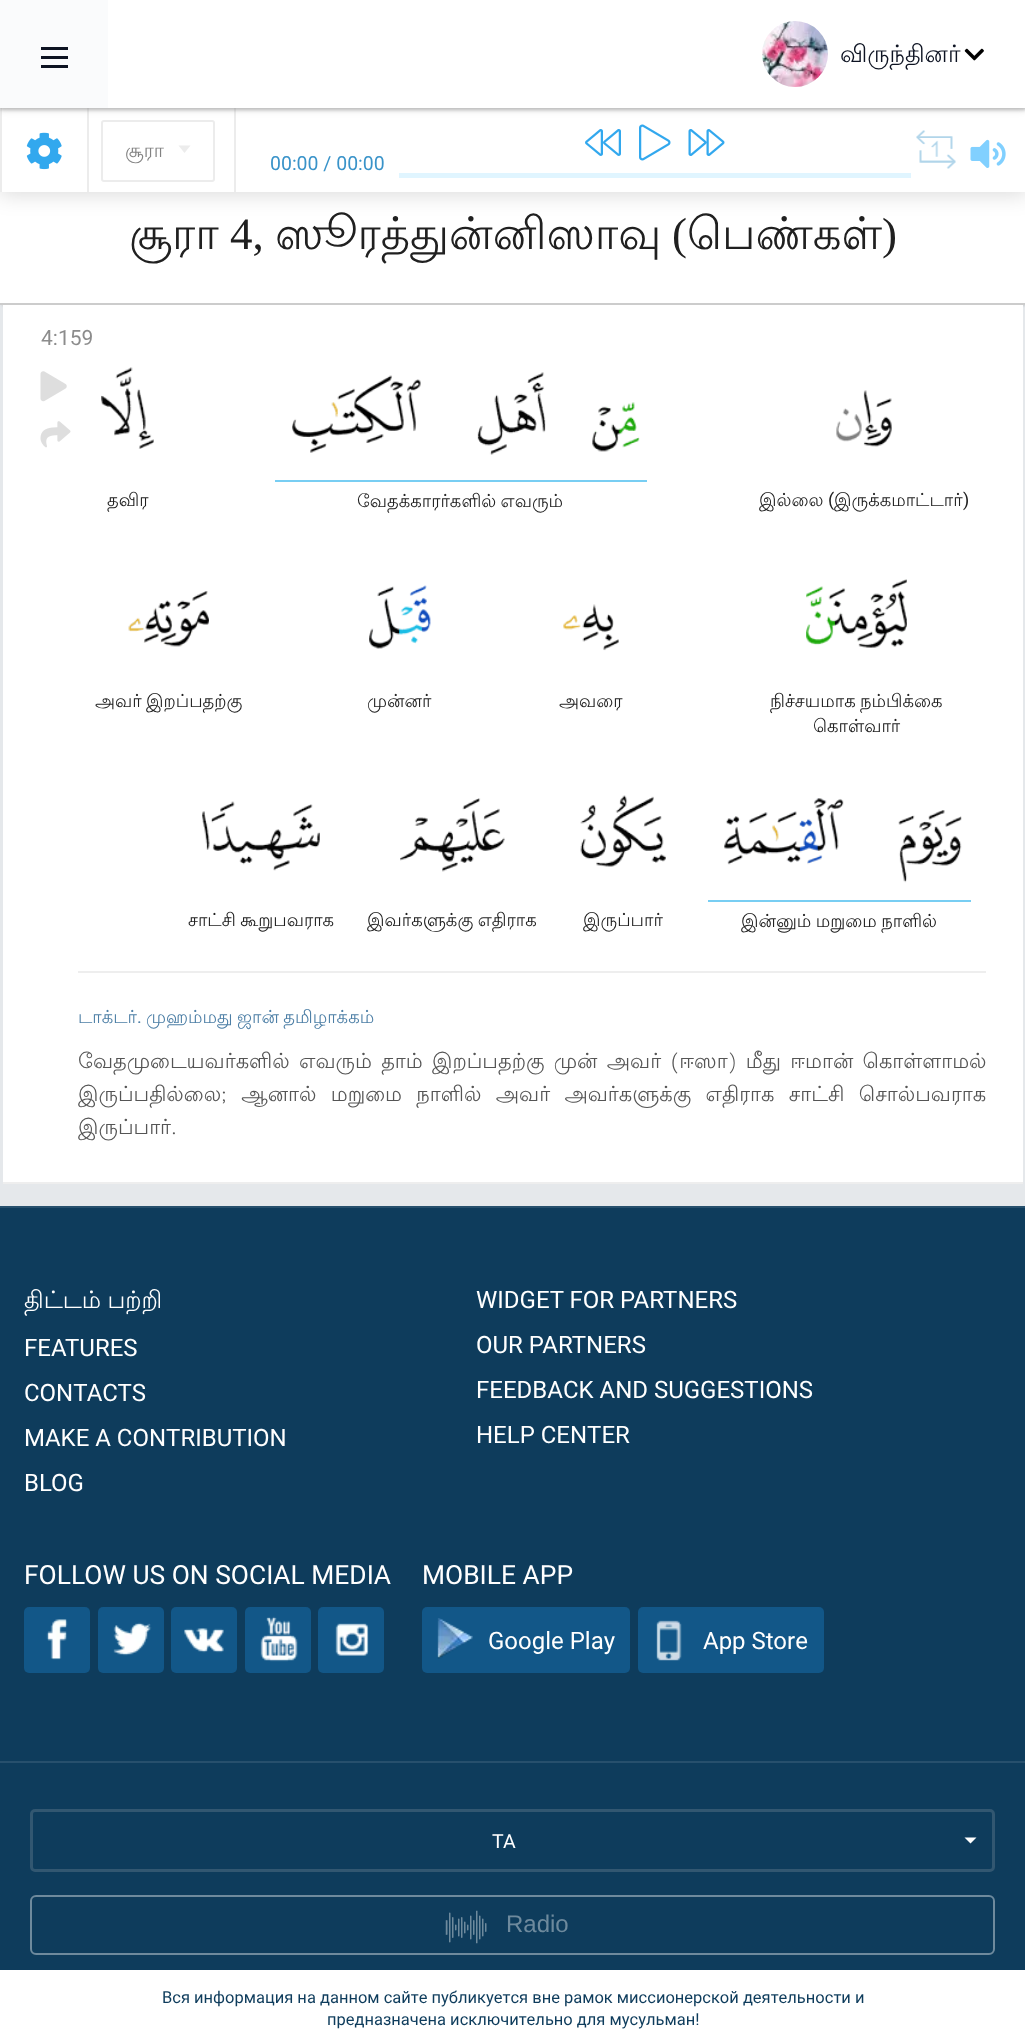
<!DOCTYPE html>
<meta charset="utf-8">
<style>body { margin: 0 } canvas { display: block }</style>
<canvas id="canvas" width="1025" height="2034"></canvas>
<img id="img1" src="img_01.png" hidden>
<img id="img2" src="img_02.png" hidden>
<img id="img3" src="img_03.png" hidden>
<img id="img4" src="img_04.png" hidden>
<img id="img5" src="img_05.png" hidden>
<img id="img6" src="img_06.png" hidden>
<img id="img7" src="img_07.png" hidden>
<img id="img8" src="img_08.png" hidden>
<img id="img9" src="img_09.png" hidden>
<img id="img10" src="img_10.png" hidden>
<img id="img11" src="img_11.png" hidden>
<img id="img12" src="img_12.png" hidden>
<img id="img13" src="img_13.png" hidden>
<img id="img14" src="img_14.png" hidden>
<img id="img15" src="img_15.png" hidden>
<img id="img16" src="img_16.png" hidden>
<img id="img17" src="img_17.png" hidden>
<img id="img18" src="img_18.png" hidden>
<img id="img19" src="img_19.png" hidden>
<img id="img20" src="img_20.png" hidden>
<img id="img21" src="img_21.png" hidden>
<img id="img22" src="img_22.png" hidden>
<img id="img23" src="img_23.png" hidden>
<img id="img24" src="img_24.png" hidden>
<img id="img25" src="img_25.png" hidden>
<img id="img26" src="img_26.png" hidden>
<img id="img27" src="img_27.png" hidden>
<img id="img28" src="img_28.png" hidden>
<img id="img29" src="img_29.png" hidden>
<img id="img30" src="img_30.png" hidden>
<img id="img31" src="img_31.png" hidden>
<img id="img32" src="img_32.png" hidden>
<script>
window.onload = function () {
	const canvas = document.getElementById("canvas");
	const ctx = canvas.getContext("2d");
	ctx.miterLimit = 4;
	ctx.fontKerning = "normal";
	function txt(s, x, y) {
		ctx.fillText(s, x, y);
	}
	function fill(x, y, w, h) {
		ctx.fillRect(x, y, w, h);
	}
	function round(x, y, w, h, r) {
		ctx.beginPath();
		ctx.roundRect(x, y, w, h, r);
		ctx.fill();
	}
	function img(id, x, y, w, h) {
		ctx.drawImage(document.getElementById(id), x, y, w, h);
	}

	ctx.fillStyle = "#E5E8EB";
	fill(0, 0, 1025, 2034);
	ctx.fillStyle = "rgba(0, 0, 0, 0.1)";
	ctx.filter = "blur(1px)";
	ctx.beginPath();
	ctx.rect(2, 173, 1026, 133);
	ctx.fill();
	ctx.filter = "none";
	ctx.fillStyle = "#FFFFFF";
	fill(0, 192, 1025, 111);
	ctx.fillStyle = "rgba(0, 0, 0, 0.15)";
	ctx.filter = "blur(11px)";
	ctx.beginPath();
	ctx.rect(-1, 107, 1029, 87);
	ctx.fill();
	ctx.filter = "none";
	ctx.fillStyle = "#FFFFFF";
	fill(2, 108, 1023, 84);
	ctx.fillStyle = "#ECECEC";
	fill(87, 108, 2, 84);
	fill(0, 108, 2, 84);
	fill(234, 108, 2, 84);
	ctx.fillStyle = "rgba(0, 0, 0, 0.2)";
	ctx.filter = "blur(1.5px)";
	ctx.beginPath();
	ctx.rect(0, 2, 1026, 108);
	ctx.fill();
	ctx.filter = "none";
	ctx.fillStyle = "rgba(170, 170, 170, 0.5)";
	ctx.filter = "blur(3px)";
	ctx.beginPath();
	ctx.rect(0, 2, 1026, 108);
	ctx.fill();
	ctx.filter = "none";
	ctx.fillStyle = "#FFFFFF";
	fill(108, 0, 917, 108);
	ctx.fillStyle = "#FAFBFC";
	fill(0, 0, 108, 108);
	ctx.fillStyle = "#0D1322";
	fill(41, 47, 27, 3);
	fill(41, 56, 27, 3);
	fill(41, 65, 27, 3);
	img("img1", 762, 21, 66, 66);
	img("img2", 964, 48, 20, 13);
	img("img3", 26, 132, 36, 38);
	ctx.beginPath();
	ctx.roundRect(102, 121, 112, 60, 2);
	ctx.strokeStyle = "#ECECEC";
	ctx.lineWidth = 2;
	ctx.stroke();
	ctx.fillStyle = "#ECECEC";
	ctx.beginPath();
	ctx.moveTo(178.5, 145.5);
	ctx.lineTo(190.5, 145.5);
	ctx.lineTo(184.5, 153);
	ctx.closePath();
	ctx.fill();
	img("img4", 585, 129, 36, 27);
	img("img5", 639, 124, 32, 37);
	img("img6", 688, 129, 37, 27);
	ctx.fillStyle = "#E0F5FF";
	fill(399, 173, 512, 5);
	img("img7", 916, 130, 40, 39);
	img("img8", 970, 139, 36, 29);
	ctx.fillStyle = "#CCCCCC";
	fill(0, 303, 1025, 2);
	ctx.fillStyle = "#FFFFFF";
	fill(3, 305, 1020, 877);
	ctx.fillStyle = "#EEEEEE";
	fill(3, 1182, 1020, 2);
	img("img9", 40, 371, 27, 31);
	img("img10", 40, 421, 31, 27);
	img("img11", 101, 367, 53, 82);
	img("img12", 292, 375, 129, 78);
	img("img13", 477, 372, 69, 83);
	img("img14", 592, 402, 48, 50);
	ctx.fillStyle = "#78CEF3";
	fill(275, 480, 372, 2);
	img("img15", 836, 390, 56, 57);
	img("img16", 128, 591, 81, 56);
	img("img17", 369, 585, 62, 64);
	img("img18", 563, 604, 56, 47);
	img("img19", 806, 579, 101, 69);
	img("img20", 202, 801, 118, 70);
	img("img21", 400, 798, 105, 74);
	img("img22", 580, 795, 86, 72);
	img("img23", 724, 798, 120, 67);
	img("img24", 898, 810, 64, 73);
	fill(708, 900, 263, 2);
	ctx.fillStyle = "#EEEEEE";
	fill(78, 971, 908, 2);
	ctx.fillStyle = "#0E3C5C";
	fill(0, 1208, 1025, 553);
	ctx.fillStyle = "#27506D";
	fill(0, 1206, 1025, 2);
	ctx.fillStyle = "#125788";
	round(24, 1607, 66, 66, 5);
	img("img25", 46, 1619, 22, 41);
	round(98, 1607, 66, 66, 5);
	img("img26", 113, 1622, 39, 34);
	round(171, 1607, 66, 66, 5);
	img("img27", 184, 1628, 40, 25);
	round(245, 1607, 66, 66, 5);
	img("img28", 260, 1616, 38, 46);
	round(318, 1607, 66, 66, 5);
	img("img29", 335, 1623, 34, 33);
	round(422, 1607, 208, 66, 5);
	img("img30", 437, 1618, 36, 41);
	round(638, 1607, 186, 66, 5);
	img("img31", 656, 1620, 26, 41);
	ctx.fillStyle = "#0E3C5C";
	fill(0, 1763, 1025, 207);
	ctx.fillStyle = "#27506D";
	fill(0, 1761, 1025, 2);
	ctx.beginPath();
	ctx.roundRect(31.5, 1810.5, 962, 60, 3.5);
	ctx.strokeStyle = "#325771";
	ctx.lineWidth = 3;
	ctx.stroke();
	ctx.fillStyle = "#FFFFFF";
	ctx.beginPath();
	ctx.moveTo(964.5, 1837.5);
	ctx.lineTo(976.5, 1837.5);
	ctx.lineTo(970.5, 1843.5);
	ctx.closePath();
	ctx.fill();
	ctx.beginPath();
	ctx.roundRect(31, 1896, 963, 58, 5);
	ctx.strokeStyle = "#6E8A9D";
	ctx.lineWidth = 2;
	ctx.stroke();
	img("img32", 445, 1910, 42, 34);
	fill(0, 1970, 1025, 64);
	ctx.font = "24px Lohit Tamil";
	ctx.fillStyle = "#0D1322";
	txt("விருந்தினர்", 840, 62);
	ctx.font = "19.5px Lohit Tamil";
	ctx.fillStyle = "#828282";
	txt("சூரா", 125, 157);
	ctx.font = "19.5px Roboto";
	ctx.fillStyle = "#3993C9";
	txt("00:00 / 00:00", 270, 170);
	ctx.font = "45px Lohit Tamil";
	ctx.fillStyle = "#202020";
	txt("சூரா", 129, 249);
	ctx.font = "45px Liberation Serif";
	txt("4,", 230, 249);
	ctx.font = "45px Lohit Tamil";
	txt("ஸூரத்துன்னிஸாவு", 275, 249);
	ctx.font = "45px Liberation Serif";
	txt("(", 672, 249);
	ctx.font = "45px Lohit Tamil";
	txt("பெண்கள்", 687, 249);
	ctx.font = "45px Liberation Serif";
	txt(")", 882, 249);
	ctx.font = "21px Roboto";
	ctx.fillStyle = "#8C8C8C";
	txt("4:159", 41, 345);
	ctx.font = "18px Lohit Tamil";
	ctx.fillStyle = "#202020";
	txt("தவிர", 107, 506);
	ctx.wordSpacing = "-1px";
	txt("வேதக்காரர்களில் எவரும்", 357, 507);
	ctx.wordSpacing = "0px";
	txt("இல்லை", 759, 506);
	ctx.font = "18px Roboto";
	txt("(", 828, 506);
	ctx.font = "18px Lohit Tamil";
	txt("இருக்கமாட்டார்", 834, 506);
	ctx.font = "18px Roboto";
	txt(")", 963, 506);
	ctx.wordSpacing = "-1px";
	ctx.font = "18px Lohit Tamil";
	txt("அவர் இறப்பதற்கு", 95, 707);
	ctx.wordSpacing = "0px";
	txt("முன்னர்", 367, 707);
	txt("அவரை", 559, 707);
	ctx.wordSpacing = "-1px";
	txt("நிச்சயமாக நம்பிக்கை", 770, 707);
	ctx.wordSpacing = "0px";
	txt("கொள்வார்", 813, 732);
	ctx.wordSpacing = "-1px";
	txt("சாட்சி கூறுபவராக", 188, 926);
	txt("இவர்களுக்கு எதிராக", 367, 926);
	ctx.wordSpacing = "0px";
	txt("இருப்பார்", 583, 926);
	ctx.wordSpacing = "-1px";
	txt("இன்னும் மறுமை நாளில்", 741, 927);
	ctx.wordSpacing = "0px";
	ctx.fillStyle = "#4D7FA6";
	txt("டாக்டர்", 78, 1023);
	ctx.font = "18px Roboto";
	txt(".", 137, 1023);
	ctx.wordSpacing = "-1px";
	ctx.font = "18px Lohit Tamil";
	txt("முஹம்மது ஜான் தமிழாக்கம்", 146, 1023);
	ctx.wordSpacing = "3px";
	ctx.font = "21px Lohit Tamil";
	ctx.fillStyle = "#555555";
	txt("வேதமுடையவர்களில் எவரும் தாம் இறப்பதற்கு முன் அவர் (ஈஸா) மீது ஈமான் கொள்ளாமல்", 78, 1068);
	ctx.wordSpacing = "8px";
	txt("இருப்பதில்லை; ஆனால் மறுமை நாளில் அவர் அவர்களுக்கு எதிராக சாட்சி சொல்பவராக", 78, 1101);
	ctx.wordSpacing = "0px";
	txt("இருப்பார்.", 78, 1134);
	ctx.wordSpacing = "-1px";
	ctx.font = "24px Lohit Tamil";
	ctx.fillStyle = "#FFFFFF";
	txt("திட்டம் பற்றி", 24, 1308);
	ctx.wordSpacing = "0px";
	ctx.font = "24px Roboto";
	txt("FEATURES", 24, 1356);
	txt("CONTACTS", 24, 1401);
	txt("MAKE A CONTRIBUTION", 24, 1446);
	txt("BLOG", 24, 1491);
	txt("WIDGET FOR PARTNERS", 476, 1308);
	txt("OUR PARTNERS", 476, 1353);
	txt("FEEDBACK AND SUGGESTIONS", 476, 1398);
	txt("HELP CENTER", 476, 1443);
	ctx.font = "26.4px Roboto";
	txt("FOLLOW US ON SOCIAL MEDIA", 24, 1584);
	txt("MOBILE APP", 422, 1584);
	ctx.font = "24px Roboto";
	txt("Google Play", 488, 1649);
	txt("App Store", 703, 1649);
	ctx.font = "19.5px Roboto";
	txt("TA", 492, 1848);
	ctx.font = "24px Liberation Sans";
	ctx.fillStyle = "#6E8A9D";
	txt("Radio", 506, 1932);
	ctx.font = "16.5px Roboto";
	ctx.fillStyle = "#0E3C5C";
	txt("Вся информация на данном сайте публикуется вне рамок миссионерской деятельности и", 162, 2003);
	txt("предназначена исключительно для мусульман!", 327, 2025);
};
</script>
